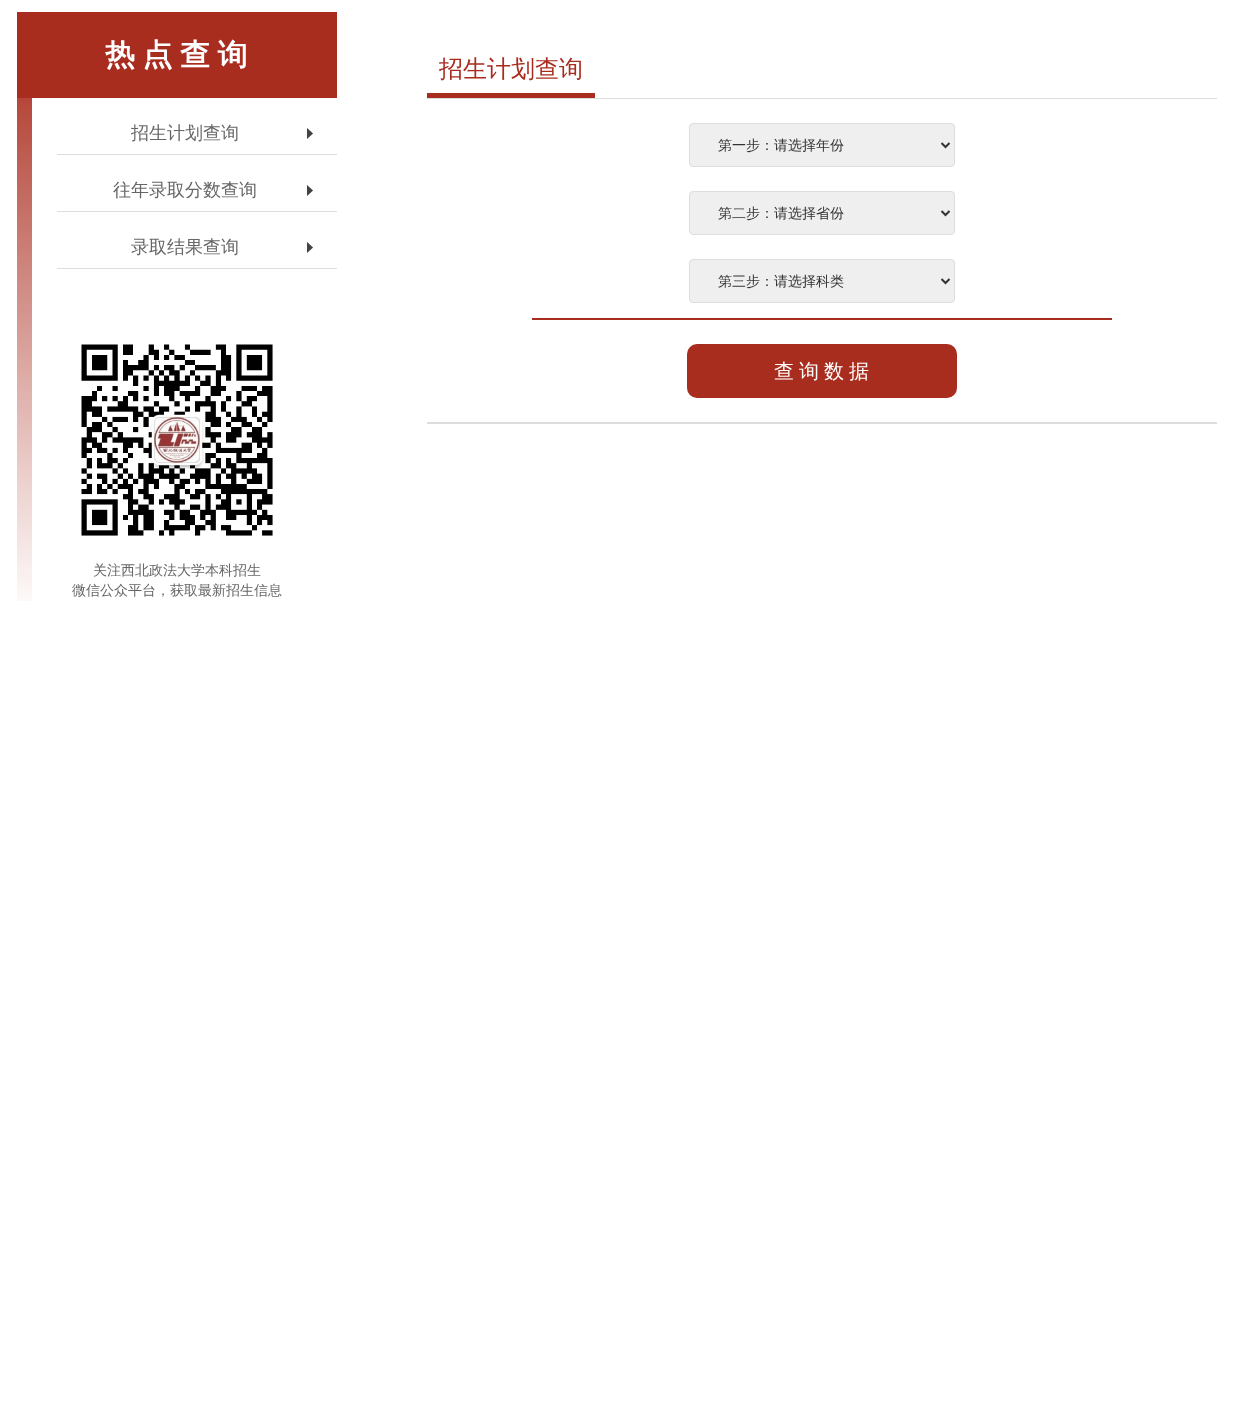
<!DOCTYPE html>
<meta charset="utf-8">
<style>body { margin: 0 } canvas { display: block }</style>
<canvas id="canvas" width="1233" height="1405"></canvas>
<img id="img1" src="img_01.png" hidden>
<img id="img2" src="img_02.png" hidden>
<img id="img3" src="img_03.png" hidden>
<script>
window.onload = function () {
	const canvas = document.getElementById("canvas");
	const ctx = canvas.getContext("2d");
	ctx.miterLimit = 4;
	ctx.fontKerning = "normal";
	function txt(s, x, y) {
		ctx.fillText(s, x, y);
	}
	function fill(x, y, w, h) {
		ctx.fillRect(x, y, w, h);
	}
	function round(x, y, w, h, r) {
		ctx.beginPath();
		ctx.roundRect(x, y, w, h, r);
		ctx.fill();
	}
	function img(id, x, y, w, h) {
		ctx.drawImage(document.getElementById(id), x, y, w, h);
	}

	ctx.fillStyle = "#FFFFFF";
	fill(0, 0, 1233, 1405);
	img("img1", 17, 98, 15, 503);
	ctx.fillStyle = "#A92D1F";
	fill(17, 12, 320, 86);
	img("img2", 307, 128, 6, 11);
	ctx.fillStyle = "#DDDDDD";
	fill(57, 154, 280, 1);
	img("img2", 307, 185, 6, 11);
	fill(57, 211, 280, 1);
	img("img2", 307, 242, 6, 11);
	fill(57, 268, 280, 1);
	img("img3", 81, 344, 192, 192);
	fill(427, 98, 790, 1);
	ctx.fillStyle = "#A92D1F";
	fill(427, 93, 168, 5);
	ctx.fillStyle = "#EFEFEF";
	ctx.beginPath();
	ctx.roundRect(689.5, 123.5, 265, 43, 3.5);
	ctx.fill();
	ctx.strokeStyle = "#DDDDDD";
	ctx.stroke();
	ctx.beginPath();
	ctx.moveTo(941.5, 143);
	ctx.lineTo(945.5, 147);
	ctx.lineTo(949.5, 143);
	ctx.strokeStyle = "#333333";
	ctx.lineWidth = 2;
	ctx.stroke();
	ctx.beginPath();
	ctx.roundRect(689.5, 191.5, 265, 43, 3.5);
	ctx.fill();
	ctx.strokeStyle = "#DDDDDD";
	ctx.lineWidth = 1;
	ctx.stroke();
	ctx.beginPath();
	ctx.moveTo(941.5, 211);
	ctx.lineTo(945.5, 215);
	ctx.lineTo(949.5, 211);
	ctx.strokeStyle = "#333333";
	ctx.lineWidth = 2;
	ctx.stroke();
	ctx.beginPath();
	ctx.roundRect(689.5, 259.5, 265, 43, 3.5);
	ctx.fill();
	ctx.strokeStyle = "#DDDDDD";
	ctx.lineWidth = 1;
	ctx.stroke();
	ctx.beginPath();
	ctx.moveTo(941.5, 279);
	ctx.lineTo(945.5, 283);
	ctx.lineTo(949.5, 279);
	ctx.strokeStyle = "#333333";
	ctx.lineWidth = 2;
	ctx.stroke();
	ctx.fillStyle = "#A92D1F";
	fill(532, 318, 580, 2);
	round(687, 344, 270, 54, 10);
	ctx.fillStyle = "#DDDDDD";
	fill(427, 422, 790, 2);
	ctx.wordSpacing = "-1.5px";
	ctx.font = "bold 30px WenQuanYi Zen Hei";
	ctx.fillStyle = "#FFFFFF";
	txt("热 点 查 询", 105, 65);
	ctx.wordSpacing = "0px";
	ctx.font = "500 18px WenQuanYi Zen Hei";
	ctx.fillStyle = "#666666";
	txt("招生计划查询", 131, 139);
	txt("往年录取分数查询", 113, 196);
	txt("录取结果查询", 131, 253);
	ctx.font = "500 14px WenQuanYi Zen Hei";
	txt("关注西北政法大学本科招生", 93, 575);
	txt("微信公众平台，获取最新招生信息", 72, 595);
	ctx.font = "500 24px WenQuanYi Zen Hei";
	ctx.fillStyle = "#A92D1F";
	txt("招生计划查询", 439, 77);
	ctx.font = "500 14px WenQuanYi Zen Hei";
	ctx.fillStyle = "#333333";
	txt("第一步：请选择年份", 718, 150);
	txt("第二步：请选择省份", 718, 218);
	txt("第三步：请选择科类", 718, 286);
	ctx.wordSpacing = "-1px";
	ctx.font = "500 20px WenQuanYi Zen Hei";
	ctx.fillStyle = "#FFFFFF";
	txt("查 询 数 据", 774, 378);
};
</script>
